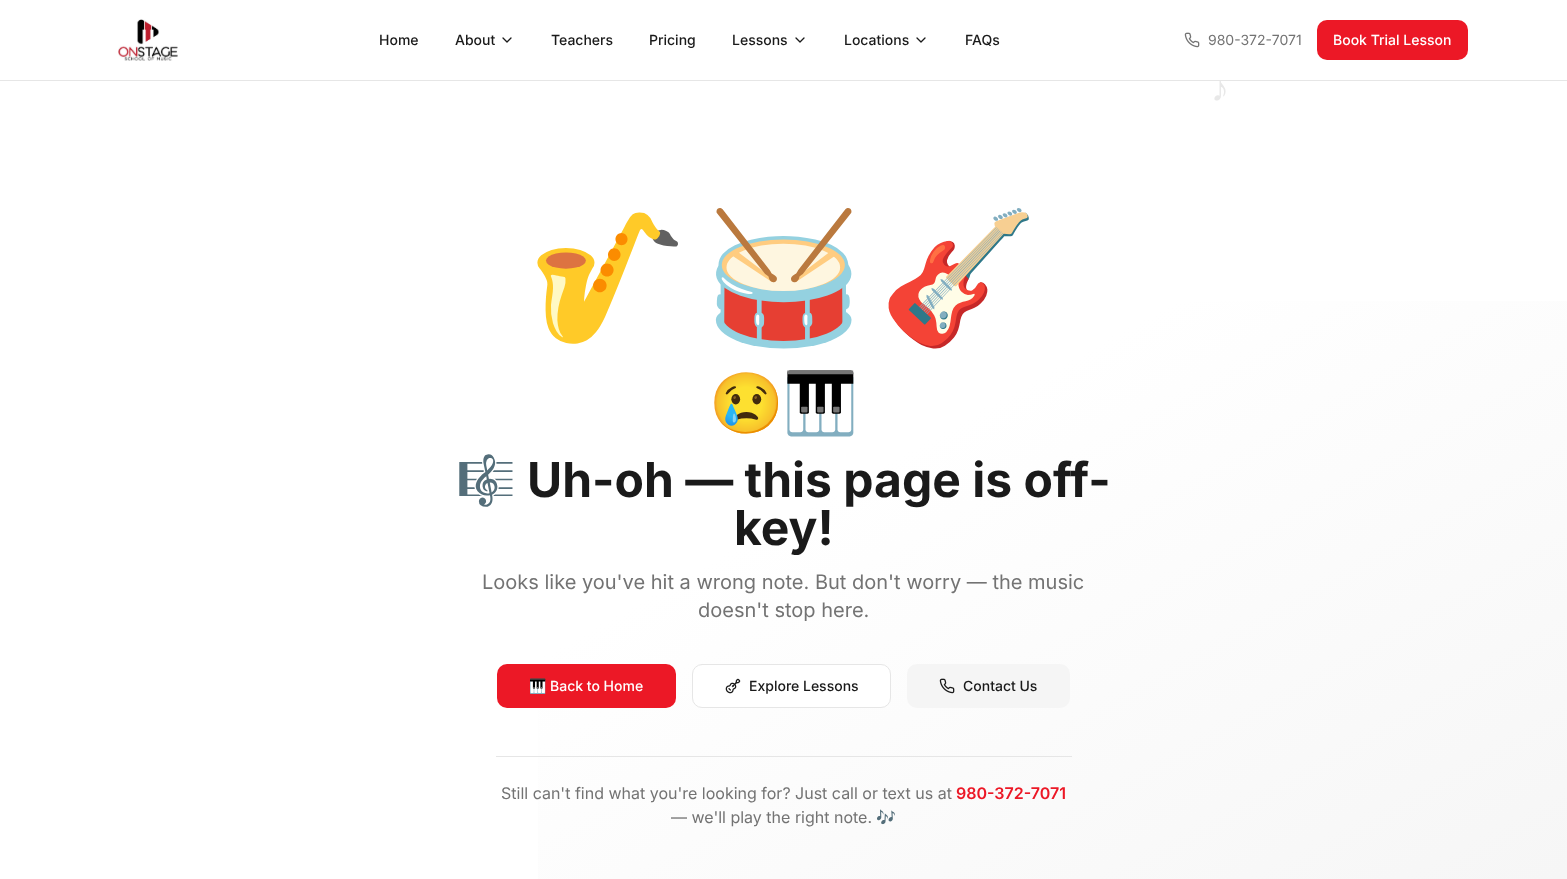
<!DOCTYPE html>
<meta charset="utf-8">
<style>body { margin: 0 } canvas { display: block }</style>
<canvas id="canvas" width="1567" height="879"></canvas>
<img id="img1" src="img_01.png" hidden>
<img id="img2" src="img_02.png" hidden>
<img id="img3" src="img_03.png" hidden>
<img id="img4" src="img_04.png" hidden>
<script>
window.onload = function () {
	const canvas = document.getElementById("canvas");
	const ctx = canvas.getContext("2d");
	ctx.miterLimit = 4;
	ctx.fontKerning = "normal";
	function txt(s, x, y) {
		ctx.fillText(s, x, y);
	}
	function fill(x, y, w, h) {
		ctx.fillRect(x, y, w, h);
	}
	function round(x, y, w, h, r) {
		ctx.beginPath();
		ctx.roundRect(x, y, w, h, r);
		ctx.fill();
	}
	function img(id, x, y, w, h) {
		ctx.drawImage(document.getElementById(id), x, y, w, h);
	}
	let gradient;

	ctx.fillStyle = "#FFFFFF";
	fill(0, 0, 1567, 879);
	ctx.fillStyle = "#E6E6E6";
	fill(0, 80, 1567, 1);
	img("img1", 118, 19, 60, 42);
	ctx.beginPath();
	ctx.moveTo(503, 38);
	ctx.lineTo(507, 42);
	ctx.lineTo(511, 38);
	ctx.strokeStyle = "#1A1A1A";
	ctx.lineWidth = 1.3;
	ctx.lineCap = "round";
	ctx.lineJoin = "round";
	ctx.stroke();
	ctx.beginPath();
	ctx.moveTo(796, 38);
	ctx.lineTo(800, 42);
	ctx.lineTo(804, 38);
	ctx.stroke();
	ctx.beginPath();
	ctx.moveTo(917, 38);
	ctx.lineTo(921, 42);
	ctx.lineTo(925, 38);
	ctx.stroke();
	img("img2", 1184, 32, 16, 16);
	ctx.fillStyle = "#EC1826";
	round(1317, 20, 151, 40, 10);
	gradient = ctx.createLinearGradient(408, -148, 1159, 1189);
	gradient.addColorStop(0, "#FFFFFF");
	gradient.addColorStop(0.5, "#FFFFFF");
	gradient.addColorStop(1, "#F5F5F5");
	ctx.fillStyle = gradient;
	fill(538, 301, 1029, 578);
	ctx.fillStyle = "#EC1826";
	round(497, 664, 179, 44, 10);
	ctx.fillStyle = "#FFFFFF";
	ctx.beginPath();
	ctx.roundRect(692.5, 664.5, 198, 43, 9.5);
	ctx.fill();
	ctx.strokeStyle = "#E6E6E6";
	ctx.lineWidth = 1;
	ctx.lineJoin = "miter";
	ctx.stroke();
	img("img3", 725, 678, 16, 16);
	ctx.fillStyle = "#F5F5F5";
	round(907, 664, 163, 44, 10);
	img("img4", 939, 678, 16, 16);
	ctx.fillStyle = "#E6E6E6";
	fill(496, 756, 576, 1);
	ctx.font = "500 14px Inter";
	ctx.fillStyle = "#1A1A1A";
	txt("Home", 379, 45);
	txt("About", 455, 45);
	txt("Teachers", 551, 45);
	txt("Pricing", 649, 45);
	txt("Lessons", 732, 45);
	txt("Locations", 844, 45);
	txt("FAQs", 965, 45);
	ctx.font = "14px Inter";
	ctx.fillStyle = "#737373";
	txt("980-372-7071", 1208, 45);
	ctx.font = "500 14px Inter";
	ctx.fillStyle = "#FFFFFF";
	txt("Book Trial Lesson", 1333, 45);
	ctx.font = "36px Liberation Sans";
	ctx.fillStyle = "#E8E8E8";
	txt("♪", 1211, 101);
	ctx.font = "bold 128px Noto Color Emoji";
	ctx.fillStyle = "#EC1826";
	txt("🎷", 528, 322);
	txt("🥁", 704, 322);
	txt("🎸", 879, 322);
	ctx.font = "60px Noto Color Emoji";
	ctx.fillStyle = "#1A1A1A";
	txt("😢🎹", 709, 424);
	ctx.font = "bold 48px Noto Color Emoji";
	txt("🎼", 456, 497);
	ctx.font = "bold 48px Inter";
	txt("Uh-oh — this page is off-", 527, 497);
	txt("key!", 734, 545);
	ctx.font = "20px Inter";
	ctx.fillStyle = "#737373";
	txt("Looks like you've hit a wrong note. But don't worry — the music", 482, 589);
	txt("doesn't stop here.", 698, 617);
	ctx.font = "14px Noto Color Emoji";
	ctx.fillStyle = "#FFFFFF";
	txt("🎹", 529, 691);
	ctx.font = "500 14px Inter";
	txt("Back to Home", 550, 691);
	ctx.fillStyle = "#1A1A1A";
	txt("Explore Lessons", 749, 691);
	txt("Contact Us", 963, 691);
	ctx.font = "16px Inter";
	ctx.fillStyle = "#737373";
	txt("Still can't find what you're looking for? Just call or text us at", 501, 799);
	ctx.font = "600 16px Inter";
	ctx.fillStyle = "#EC1826";
	txt("980-372-7071", 956, 799);
	ctx.font = "16px Inter";
	ctx.fillStyle = "#737373";
	txt("— we'll play the right note.", 671, 823);
	ctx.font = "16px Noto Color Emoji";
	txt("🎶", 876, 823);
};
</script>
